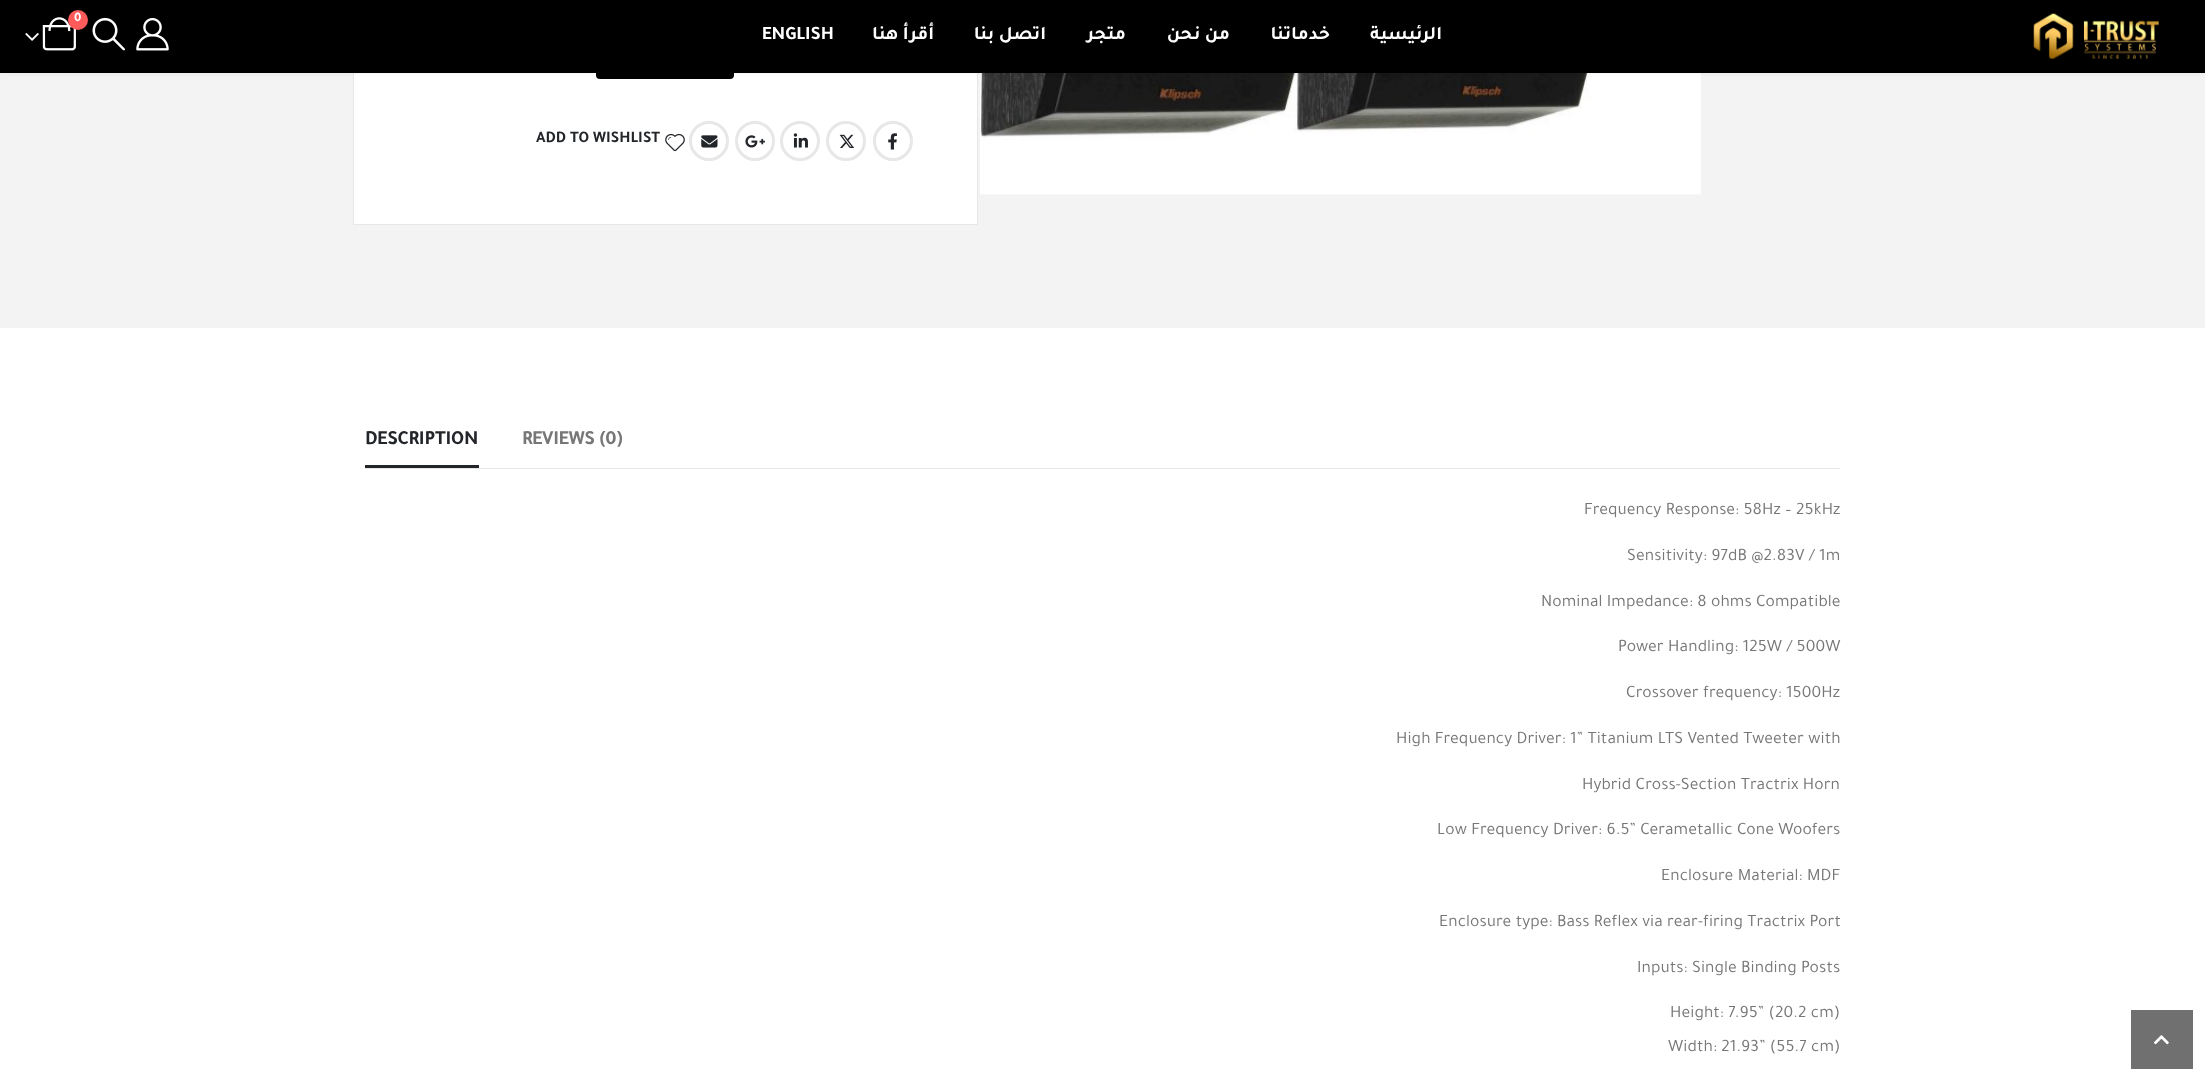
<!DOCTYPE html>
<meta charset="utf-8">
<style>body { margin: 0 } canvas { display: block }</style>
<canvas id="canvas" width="2205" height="1069"></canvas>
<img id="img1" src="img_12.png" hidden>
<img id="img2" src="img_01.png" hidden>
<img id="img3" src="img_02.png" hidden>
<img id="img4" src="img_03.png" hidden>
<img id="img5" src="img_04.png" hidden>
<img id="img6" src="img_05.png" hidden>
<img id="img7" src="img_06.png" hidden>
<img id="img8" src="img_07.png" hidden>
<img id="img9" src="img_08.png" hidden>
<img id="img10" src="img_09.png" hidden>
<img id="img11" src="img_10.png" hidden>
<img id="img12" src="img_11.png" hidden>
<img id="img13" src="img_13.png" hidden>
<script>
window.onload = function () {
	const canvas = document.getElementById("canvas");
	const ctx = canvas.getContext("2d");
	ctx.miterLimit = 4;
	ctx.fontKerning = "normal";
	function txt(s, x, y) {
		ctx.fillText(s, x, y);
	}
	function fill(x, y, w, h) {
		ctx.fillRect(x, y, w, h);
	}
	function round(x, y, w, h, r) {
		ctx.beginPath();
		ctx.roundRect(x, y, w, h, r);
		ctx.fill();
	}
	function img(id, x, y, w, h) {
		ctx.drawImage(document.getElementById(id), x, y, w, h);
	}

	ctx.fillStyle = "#FFFFFF";
	fill(0, 0, 2205, 1069);
	ctx.fillStyle = "#F3F3F3";
	fill(0, 73, 2205, 255);
	ctx.fillStyle = "#FFFFFF";
	fill(354, 73, 623, 151);
	ctx.strokeStyle = "#E7E7E7";
	ctx.strokeRect(353.5, -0.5, 624, 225);
	ctx.fillStyle = "#000000";
	round(596, 30, 138, 49, 4);
	img("img1", 980, 73, 721, 122);
	ctx.fillStyle = "rgba(0, 0, 0, 0.06)";
	ctx.filter = "blur(2px)";
	ctx.beginPath();
	ctx.rect(0, 0, 2205, 73);
	ctx.fill();
	ctx.filter = "none";
	ctx.fillStyle = "#000000";
	fill(0, 0, 2205, 73);
	img("img2", 42, 17, 34, 34);
	ctx.fillStyle = "#FF5B5B";
	ctx.beginPath();
	ctx.arc(78, 20, 10, 0, Math.PI * 2);
	ctx.fill();
	img("img3", 25, 33, 14, 8);
	img("img4", 92, 17, 33, 34);
	img("img5", 136, 18, 33, 33);
	img("img6", 2033, 13, 126, 46);
	img("img7", 665, 134, 20, 18);
	ctx.beginPath();
	ctx.arc(709, 141, 18.5, 0, Math.PI * 2);
	ctx.lineWidth = 3;
	ctx.stroke();
	img("img8", 701, 135, 17, 13);
	ctx.beginPath();
	ctx.arc(755, 141, 18.5, 0, Math.PI * 2);
	ctx.stroke();
	img("img9", 745, 135, 20, 13);
	ctx.beginPath();
	ctx.arc(800, 141, 18.5, 0, Math.PI * 2);
	ctx.stroke();
	img("img10", 793, 133, 15, 15);
	ctx.beginPath();
	ctx.arc(846, 141, 18.5, 0, Math.PI * 2);
	ctx.stroke();
	img("img11", 839, 134, 16, 14);
	ctx.beginPath();
	ctx.arc(893, 141, 18.5, 0, Math.PI * 2);
	ctx.stroke();
	img("img12", 888, 133, 9, 17);
	ctx.fillStyle = "#222529";
	fill(365, 465, 114, 3);
	ctx.fillStyle = "#E7E7E7";
	fill(365, 468, 1475, 1);
	ctx.fillStyle = "#707070";
	fill(2131, 1010, 62, 59);
	img("img13", 2154, 1035, 15, 10);
	ctx.font = "bold 13px Tajawal";
	ctx.fillStyle = "#FFFFFF";
	txt("0", 74, 21);
	ctx.font = "bold 19px Tajawal";
	txt("ENGLISH", 762, 39);
	ctx.direction = "rtl";
	txt("أقرأ هنا", 934, 39);
	txt("اتصل بنا", 1046, 39);
	txt("متجر", 1126, 39);
	txt("من نحن", 1230, 39);
	txt("خدماتنا", 1330, 39);
	txt("الرئيسية", 1442, 39);
	ctx.direction = "ltr";
	ctx.font = "bold 16.25px Tajawal";
	ctx.fillStyle = "#222529";
	txt("ADD TO WISHLIST", 536, 142);
	ctx.letterSpacing = "-0.25px";
	ctx.font = "bold 20px Tajawal";
	txt("DESCRIPTION", 365, 444);
	ctx.fillStyle = "#777777";
	txt("REVIEWS (0)", 522, 444);
	ctx.letterSpacing = "0.1px";
	ctx.font = "17.5px Tajawal";
	txt("Frequency Response: 58Hz – 25kHz", 1584, 514);
	txt("Sensitivity: 97dB @2.83V / 1m", 1627, 560);
	txt("Nominal Impedance: 8 ohms Compatible", 1541, 606);
	txt("Power Handling: 125W / 500W", 1618, 651);
	txt("Crossover frequency: 1500Hz", 1626, 697);
	txt("High Frequency Driver: 1” Titanium LTS Vented Tweeter with", 1396, 743);
	txt("Hybrid Cross-Section Tractrix Horn", 1582, 789);
	txt("Low Frequency Driver: 6.5” Cerametallic Cone Woofers", 1437, 834);
	txt("Enclosure Material: MDF", 1661, 880);
	txt("Enclosure type: Bass Reflex via rear-firing Tractrix Port", 1439, 926);
	txt("Inputs: Single Binding Posts", 1637, 972);
	txt("Height: 7.95” (20.2 cm)", 1670, 1017);
	txt("Width: 21.93” (55.7 cm)", 1668, 1051);
};
</script>
